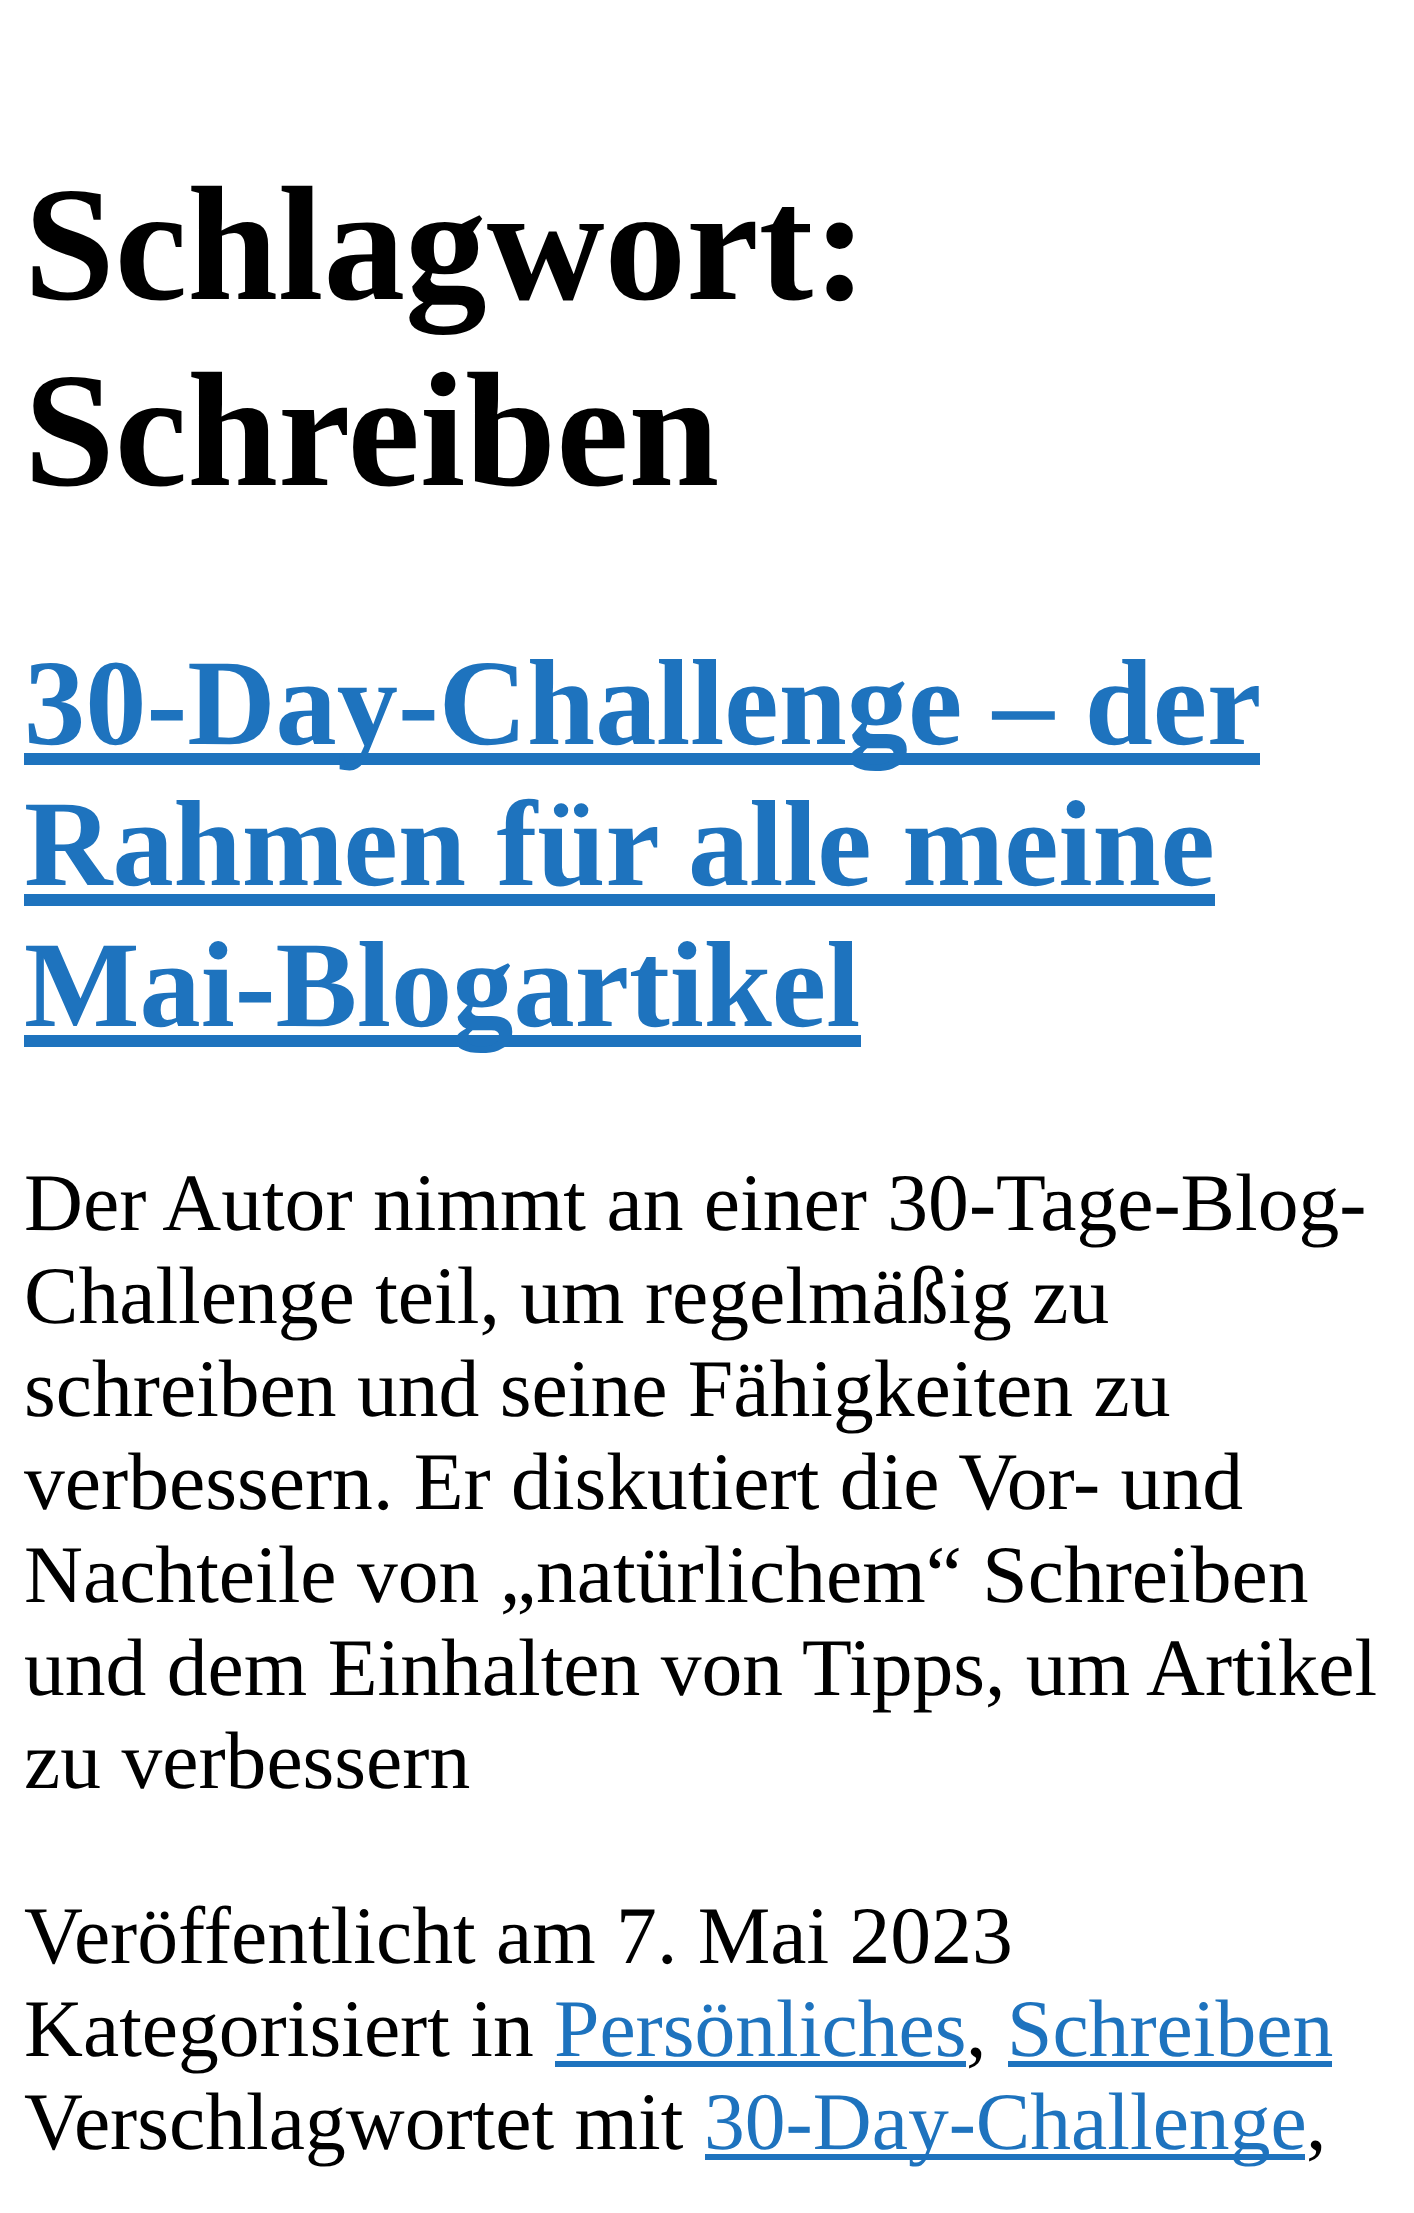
<!DOCTYPE html>
<meta charset="utf-8">
<style>body { margin: 0 } canvas { display: block }</style>
<canvas id="canvas" width="1414" height="2213"></canvas>
<script>
window.onload = function () {
	const canvas = document.getElementById("canvas");
	const ctx = canvas.getContext("2d");
	ctx.miterLimit = 4;
	ctx.fontKerning = "normal";
	function txt(s, x, y) {
		ctx.fillText(s, x, y);
	}
	function fill(x, y, w, h) {
		ctx.fillRect(x, y, w, h);
	}

	ctx.fillStyle = "#FFFFFF";
	fill(0, 0, 1414, 2213);
	ctx.fillStyle = "#1E73BE";
	fill(24, 753, 1236, 12);
	fill(24, 894, 1191, 12);
	fill(24, 1035, 837, 12);
	fill(555, 2061, 411, 6);
	fill(1008, 2061, 324, 6);
	fill(705, 2154, 600, 6);
	ctx.font = "bold 163.25px Liberation Serif";
	ctx.fillStyle = "#000000";
	txt("Schlagwort:", 24, 299);
	txt("Schreiben", 24, 485);
	ctx.font = "bold 122.4px Liberation Serif";
	ctx.fillStyle = "#1E73BE";
	txt("30-Day-Challenge – der", 24, 744);
	txt("Rahmen für alle meine", 24, 885);
	txt("Mai-Blogartikel", 24, 1026);
	ctx.font = "81.6px Liberation Serif";
	ctx.fillStyle = "#000000";
	txt("Der Autor nimmt an einer 30-Tage-Blog-", 24, 1230);
	txt("Challenge teil, um regelmäßig zu", 24, 1323);
	txt("schreiben und seine Fähigkeiten zu", 24, 1416);
	txt("verbessern. Er diskutiert die Vor- und", 24, 1509);
	txt("Nachteile von „natürlichem“ Schreiben", 24, 1602);
	txt("und dem Einhalten von Tipps, um Artikel", 24, 1695);
	txt("zu verbessern", 24, 1788);
	txt("Veröffentlicht am 7. Mai 2023", 24, 1963);
	txt("Kategorisiert in", 24, 2056);
	ctx.fillStyle = "#1E73BE";
	txt("Persönliches", 554, 2056);
	ctx.fillStyle = "#000000";
	txt(",", 966, 2056);
	ctx.fillStyle = "#1E73BE";
	txt("Schreiben", 1007, 2056);
	ctx.fillStyle = "#000000";
	txt("Verschlagwortet mit", 24, 2149);
	ctx.fillStyle = "#1E73BE";
	txt("30-Day-Challenge", 704, 2149);
	ctx.fillStyle = "#000000";
	txt(",", 1306, 2149);
};
</script>
